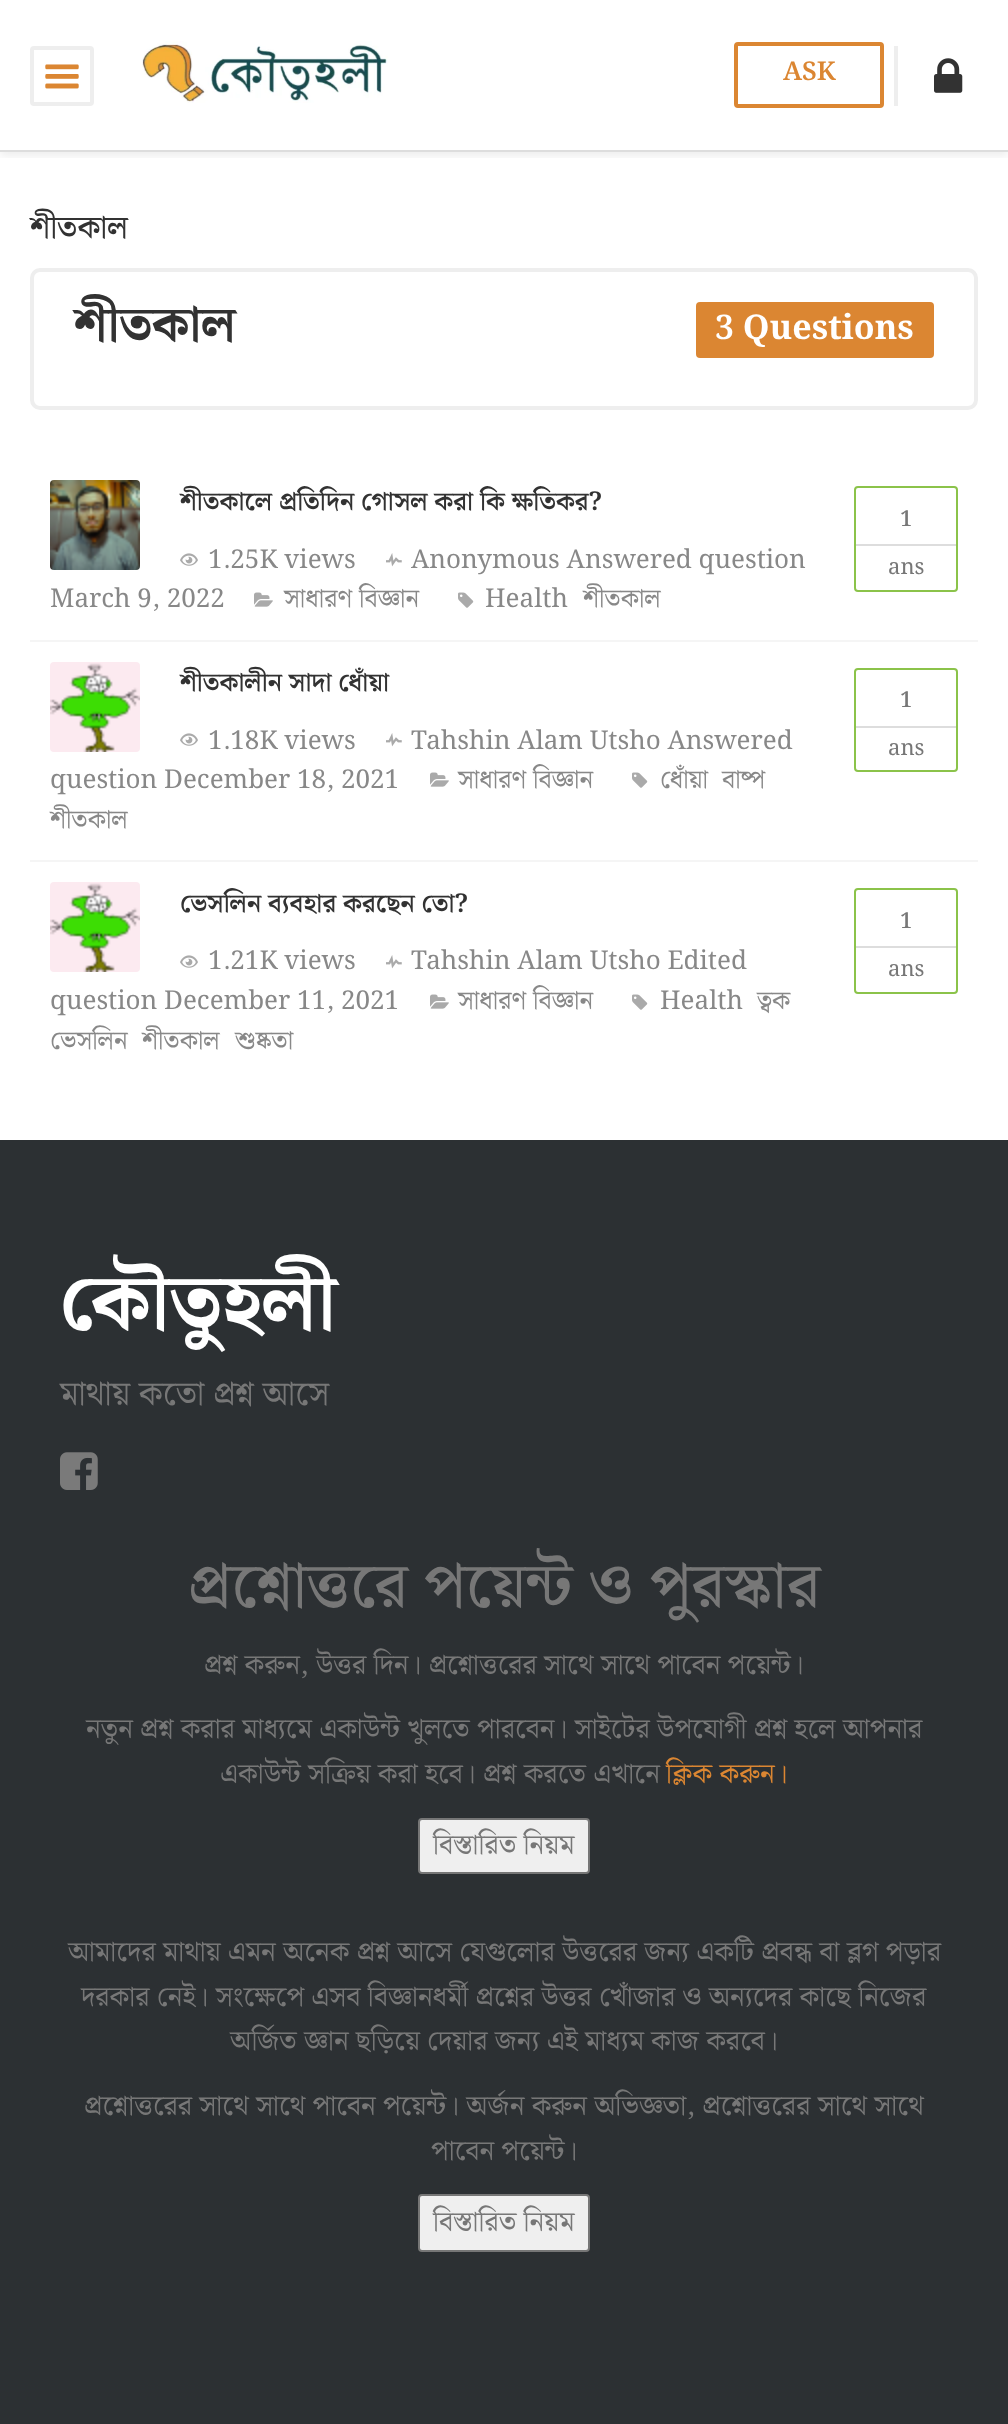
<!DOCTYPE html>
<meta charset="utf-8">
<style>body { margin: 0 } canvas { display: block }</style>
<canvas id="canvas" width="1008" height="2424"></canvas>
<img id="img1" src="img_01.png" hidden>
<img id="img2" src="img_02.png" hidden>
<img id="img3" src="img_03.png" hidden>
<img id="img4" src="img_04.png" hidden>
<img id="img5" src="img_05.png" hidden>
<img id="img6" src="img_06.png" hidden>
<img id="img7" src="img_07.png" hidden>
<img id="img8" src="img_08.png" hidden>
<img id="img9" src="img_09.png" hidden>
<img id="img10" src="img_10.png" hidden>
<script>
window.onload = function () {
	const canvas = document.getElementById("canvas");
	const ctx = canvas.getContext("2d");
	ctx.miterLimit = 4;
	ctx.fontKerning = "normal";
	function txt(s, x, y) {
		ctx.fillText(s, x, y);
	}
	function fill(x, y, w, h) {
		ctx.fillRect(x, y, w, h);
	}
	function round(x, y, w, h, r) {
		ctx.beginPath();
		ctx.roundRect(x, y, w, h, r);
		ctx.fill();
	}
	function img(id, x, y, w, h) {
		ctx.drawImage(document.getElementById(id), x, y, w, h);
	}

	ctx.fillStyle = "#FFFFFF";
	fill(0, 0, 1008, 2424);
	ctx.save();
	ctx.beginPath();
	ctx.rect(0, 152, 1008, 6);
	ctx.clip();
	ctx.fillStyle = "rgba(0, 0, 0, 0.07)";
	ctx.filter = "blur(4px)";
	ctx.beginPath();
	ctx.rect(0, 4, 1008, 152);
	ctx.fill();
	ctx.filter = "none";
	ctx.restore();
	ctx.fillStyle = "#DDDDDD";
	fill(0, 150, 1008, 2);
	ctx.beginPath();
	ctx.roundRect(32, 48, 60, 56, 2);
	ctx.strokeStyle = "#EEEEEE";
	ctx.lineWidth = 4;
	ctx.stroke();
	img("img1", 45, 64, 34, 25);
	img("img2", 142, 41, 246, 62);
	ctx.beginPath();
	ctx.roundRect(736, 44, 146, 62, 2);
	ctx.strokeStyle = "#DB8632";
	ctx.stroke();
	ctx.fillStyle = "#EEEEEE";
	fill(894, 46, 4, 60);
	img("img3", 934, 58, 29, 35);
	ctx.beginPath();
	ctx.roundRect(32, 270, 944, 138, 8);
	ctx.strokeStyle = "#EEEEEE";
	ctx.stroke();
	ctx.fillStyle = "#DB8632";
	round(696, 302, 238, 56, 4);
	ctx.fillStyle = "#F5F5F5";
	fill(30, 640, 948, 2);
	img("img4", 50, 480, 90, 90);
	img("img5", 180, 553, 18, 13);
	img("img6", 386, 553, 16, 14);
	img("img7", 254, 592, 19, 15);
	img("img8", 458, 592, 16, 16);
	ctx.beginPath();
	ctx.roundRect(855, 487, 102, 104, 3);
	ctx.strokeStyle = "#8BC34A";
	ctx.lineWidth = 2;
	ctx.stroke();
	ctx.fillStyle = "#DDDDDD";
	fill(856, 544, 100, 2);
	ctx.fillStyle = "#F5F5F5";
	fill(30, 860, 948, 2);
	img("img9", 50, 662, 90, 90);
	img("img5", 180, 733, 18, 13);
	img("img6", 386, 733, 16, 14);
	img("img7", 430, 772, 19, 15);
	img("img8", 632, 772, 16, 16);
	ctx.beginPath();
	ctx.roundRect(855, 669, 102, 102, 3);
	ctx.stroke();
	ctx.fillStyle = "#DDDDDD";
	fill(856, 726, 100, 2);
	img("img9", 50, 882, 90, 90);
	img("img5", 180, 955, 18, 13);
	img("img6", 386, 955, 16, 14);
	img("img7", 430, 994, 19, 15);
	img("img8", 632, 994, 16, 16);
	ctx.beginPath();
	ctx.roundRect(855, 889, 102, 104, 3);
	ctx.stroke();
	fill(856, 946, 100, 2);
	ctx.fillStyle = "#2C3033";
	fill(0, 1140, 1008, 1284);
	img("img10", 60, 1452, 38, 38);
	ctx.fillStyle = "#EFEFEF";
	ctx.beginPath();
	ctx.roundRect(419, 1819, 170, 54, 3);
	ctx.fill();
	ctx.strokeStyle = "#767676";
	ctx.stroke();
	ctx.beginPath();
	ctx.roundRect(419, 2195, 170, 56, 3);
	ctx.fill();
	ctx.stroke();
	ctx.font = "600 26px Noto Serif Bengali";
	ctx.fillStyle = "#DB8632";
	txt("ASK", 783, 80);
	ctx.font = "500 32px Noto Serif Bengali";
	ctx.fillStyle = "#323232";
	txt("শীতকাল", 30, 238);
	ctx.font = "bold 50px Noto Serif Bengali";
	txt("শীতকাল", 74, 341);
	ctx.font = "bold 34px Noto Serif Bengali";
	ctx.fillStyle = "#FFFFFF";
	txt("3 Questions", 715, 339);
	ctx.font = "600 26px Noto Serif Bengali";
	ctx.fillStyle = "#323232";
	txt("শীতকালে প্রতিদিন গোসল করা কি ক্ষতিকর?", 180, 510);
	ctx.font = "26px Noto Serif Bengali";
	ctx.fillStyle = "#888888";
	txt("1.25K views", 208, 568);
	txt("Anonymous Answered question", 411, 568);
	txt("March 9, 2022", 50, 607);
	txt("সাধারণ বিজ্ঞান", 284, 607);
	txt("Health", 485, 607);
	txt("শীতকাল", 583, 607);
	ctx.font = "600 22px Noto Serif Bengali";
	ctx.fillStyle = "#777777";
	txt("1", 900, 526);
	ctx.font = "22px Noto Serif Bengali";
	txt("ans", 888, 574);
	ctx.font = "600 26px Noto Serif Bengali";
	ctx.fillStyle = "#323232";
	txt("শীতকালীন সাদা ধোঁয়া", 180, 691);
	ctx.font = "26px Noto Serif Bengali";
	ctx.fillStyle = "#888888";
	txt("1.18K views", 208, 749);
	txt("Tahshin Alam Utsho Answered", 411, 749);
	txt("question December 18, 2021", 50, 788);
	txt("সাধারণ বিজ্ঞান", 458, 788);
	txt("ধোঁয়া", 660, 788);
	txt("বাষ্প", 722, 788);
	txt("শীতকাল", 50, 828);
	ctx.font = "600 22px Noto Serif Bengali";
	ctx.fillStyle = "#777777";
	txt("1", 900, 707);
	ctx.font = "22px Noto Serif Bengali";
	txt("ans", 888, 755);
	ctx.font = "600 26px Noto Serif Bengali";
	ctx.fillStyle = "#323232";
	txt("ভেসলিন ব্যবহার করছেন তো?", 180, 912);
	ctx.font = "26px Noto Serif Bengali";
	ctx.fillStyle = "#888888";
	txt("1.21K views", 208, 969);
	txt("Tahshin Alam Utsho Edited", 411, 969);
	txt("question December 11, 2021", 50, 1009);
	txt("সাধারণ বিজ্ঞান", 458, 1009);
	txt("Health", 660, 1009);
	txt("ত্বক", 757, 1009);
	txt("ভেসলিন", 50, 1049);
	txt("শীতকাল", 142, 1049);
	txt("শুষ্কতা", 235, 1049);
	ctx.font = "600 22px Noto Serif Bengali";
	ctx.fillStyle = "#777777";
	txt("1", 900, 928);
	ctx.font = "22px Noto Serif Bengali";
	txt("ans", 888, 976);
	ctx.font = "bold 80px Noto Serif Bengali";
	ctx.fillStyle = "#FFFFFF";
	txt("কৌতুহলী", 60, 1329);
	ctx.font = "34px Noto Serif Bengali";
	ctx.fillStyle = "#777777";
	txt("মাথায় কতো প্রশ্ন আসে", 60, 1405);
	ctx.font = "500 64px Noto Serif Bengali";
	txt("প্রশ্নোত্তরে পয়েন্ট ও পুরস্কার", 188, 1607);
	ctx.font = "28px Noto Serif Bengali";
	txt("প্রশ্ন করুন, উত্তর দিন। প্রশ্নোত্তরের সাথে সাথে পাবেন পয়েন্ট।", 204, 1674);
	txt("নতুন প্রশ্ন করার মাধ্যমে একাউন্ট খুলতে পারবেন। সাইটের উপযোগী প্রশ্ন হলে আপনার", 86, 1738);
	txt("একাউন্ট সক্রিয় করা হবে। প্রশ্ন করতে এখানে", 220, 1783);
	ctx.fillStyle = "#DB8632";
	txt("ক্লিক করুন।", 666, 1783);
	ctx.fillStyle = "#777777";
	txt("বিস্তারিত নিয়ম", 433, 1854);
	txt("আমাদের মাথায় এমন অনেক প্রশ্ন আসে যেগুলোর উত্তরের জন্য একটি প্রবন্ধ বা ব্লগ পড়ার", 68, 1961);
	txt("দরকার নেই। সংক্ষেপে এসব বিজ্ঞানধর্মী প্রশ্নের উত্তর খোঁজার ও অন্যদের কাছে নিজের", 81, 2006);
	txt("অর্জিত জ্ঞান ছড়িয়ে দেয়ার জন্য এই মাধ্যম কাজ করবে।", 230, 2050);
	txt("প্রশ্নোত্তরের সাথে সাথে পাবেন পয়েন্ট। অর্জন করুন অভিজ্ঞতা, প্রশ্নোত্তরের সাথে সাথে", 84, 2115);
	txt("পাবেন পয়েন্ট।", 431, 2160);
	txt("বিস্তারিত নিয়ম", 433, 2231);
};
</script>
